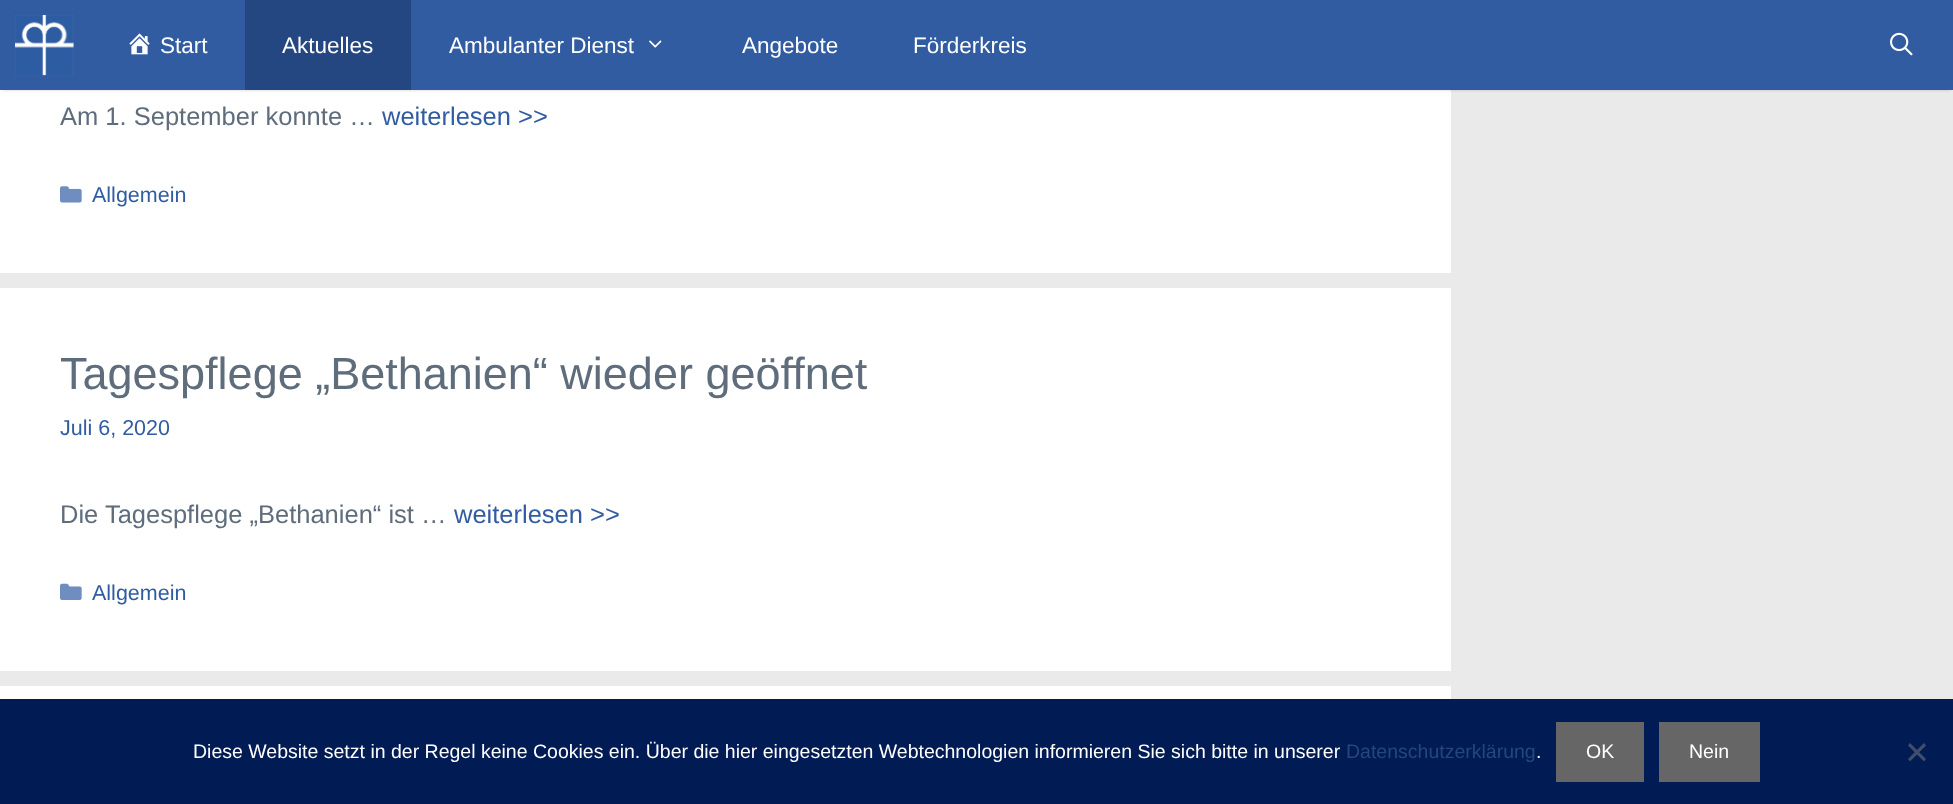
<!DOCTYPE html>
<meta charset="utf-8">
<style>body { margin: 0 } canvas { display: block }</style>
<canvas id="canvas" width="1953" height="804"></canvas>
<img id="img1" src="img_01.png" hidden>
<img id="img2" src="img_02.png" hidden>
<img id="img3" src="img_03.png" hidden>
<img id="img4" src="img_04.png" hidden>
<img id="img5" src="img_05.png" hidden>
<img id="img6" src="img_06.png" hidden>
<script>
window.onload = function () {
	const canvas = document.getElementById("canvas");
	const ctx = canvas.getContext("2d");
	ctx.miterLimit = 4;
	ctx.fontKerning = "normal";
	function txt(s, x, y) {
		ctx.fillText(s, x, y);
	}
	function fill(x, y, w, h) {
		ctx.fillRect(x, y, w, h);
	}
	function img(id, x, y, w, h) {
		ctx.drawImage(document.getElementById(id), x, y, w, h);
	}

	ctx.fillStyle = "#EAEAEB";
	fill(0, 0, 1953, 804);
	ctx.fillStyle = "#FFFFFF";
	fill(0, 90, 1451, 183);
	ctx.fillStyle = "rgba(0, 0, 0, 0.2)";
	ctx.filter = "blur(1.5px)";
	ctx.beginPath();
	ctx.rect(3, 6, 1947, 84);
	ctx.fill();
	ctx.filter = "none";
	ctx.fillStyle = "#315CA2";
	fill(0, 0, 1953, 90);
	img("img1", 15, 15, 59, 61);
	img("img2", 129, 33, 21, 22);
	ctx.fillStyle = "#244781";
	fill(245, 0, 166, 90);
	img("img3", 649, 40, 13, 8);
	img("img4", 1890, 32, 23, 24);
	img("img5", 60, 186, 22, 17);
	ctx.fillStyle = "#FFFFFF";
	fill(0, 288, 1451, 383);
	img("img6", 60, 583, 22, 17);
	fill(0, 686, 1451, 13);
	ctx.fillStyle = "#011B54";
	fill(0, 699, 1953, 105);
	ctx.fillStyle = "#666666";
	fill(1556, 722, 88, 60);
	fill(1659, 722, 101, 60);
	ctx.fillStyle = "#414E6A";
	ctx.beginPath();
	ctx.moveTo(1924, 743);
	ctx.lineTo(1926, 745.5);
	ctx.lineTo(1910, 761.5);
	ctx.lineTo(1908, 759);
	ctx.closePath();
	ctx.fill();
	ctx.beginPath();
	ctx.moveTo(1908, 745.5);
	ctx.lineTo(1910, 743);
	ctx.lineTo(1926, 759);
	ctx.lineTo(1924, 761.5);
	ctx.closePath();
	ctx.fill();
	ctx.font = "22.5px Liberation Sans";
	ctx.fillStyle = "#FFFFFF";
	txt("Start", 160, 53);
	txt("Aktuelles", 282, 53);
	txt("Ambulanter Dienst", 449, 53);
	txt("Angebote", 742, 53);
	txt("Förderkreis", 913, 53);
	ctx.font = "25.5px Liberation Sans";
	ctx.fillStyle = "#5E6C7C";
	txt("Am 1. September konnte …", 60, 125);
	ctx.fillStyle = "#315CA2";
	txt("weiterlesen >>", 382, 125);
	ctx.font = "21.5px Liberation Sans";
	txt("Allgemein", 92, 202);
	ctx.font = "45px Liberation Sans";
	ctx.fillStyle = "#5E6C7C";
	txt("Tagespflege „Bethanien“ wieder geöffnet", 60, 389);
	ctx.font = "21.5px Liberation Sans";
	ctx.fillStyle = "#315CA2";
	txt("Juli 6, 2020", 60, 435);
	ctx.font = "25.5px Liberation Sans";
	ctx.fillStyle = "#5E6C7C";
	txt("Die Tagespflege „Bethanien“ ist …", 60, 523);
	ctx.fillStyle = "#315CA2";
	txt("weiterlesen >>", 454, 523);
	ctx.font = "21.5px Liberation Sans";
	txt("Allgemein", 92, 600);
	ctx.font = "19.5px Liberation Sans";
	ctx.fillStyle = "#FFFFFF";
	txt("Diese Website setzt in der Regel keine Cookies ein. Über die hier eingesetzten Webtechnologien informieren Sie sich bitte in unserer", 193, 758);
	ctx.fillStyle = "#244781";
	txt("Datenschutzerklärung", 1346, 758);
	ctx.fillStyle = "#FFFFFF";
	txt(".", 1536, 758);
	txt("OK", 1586, 758);
	txt("Nein", 1689, 758);
};
</script>
